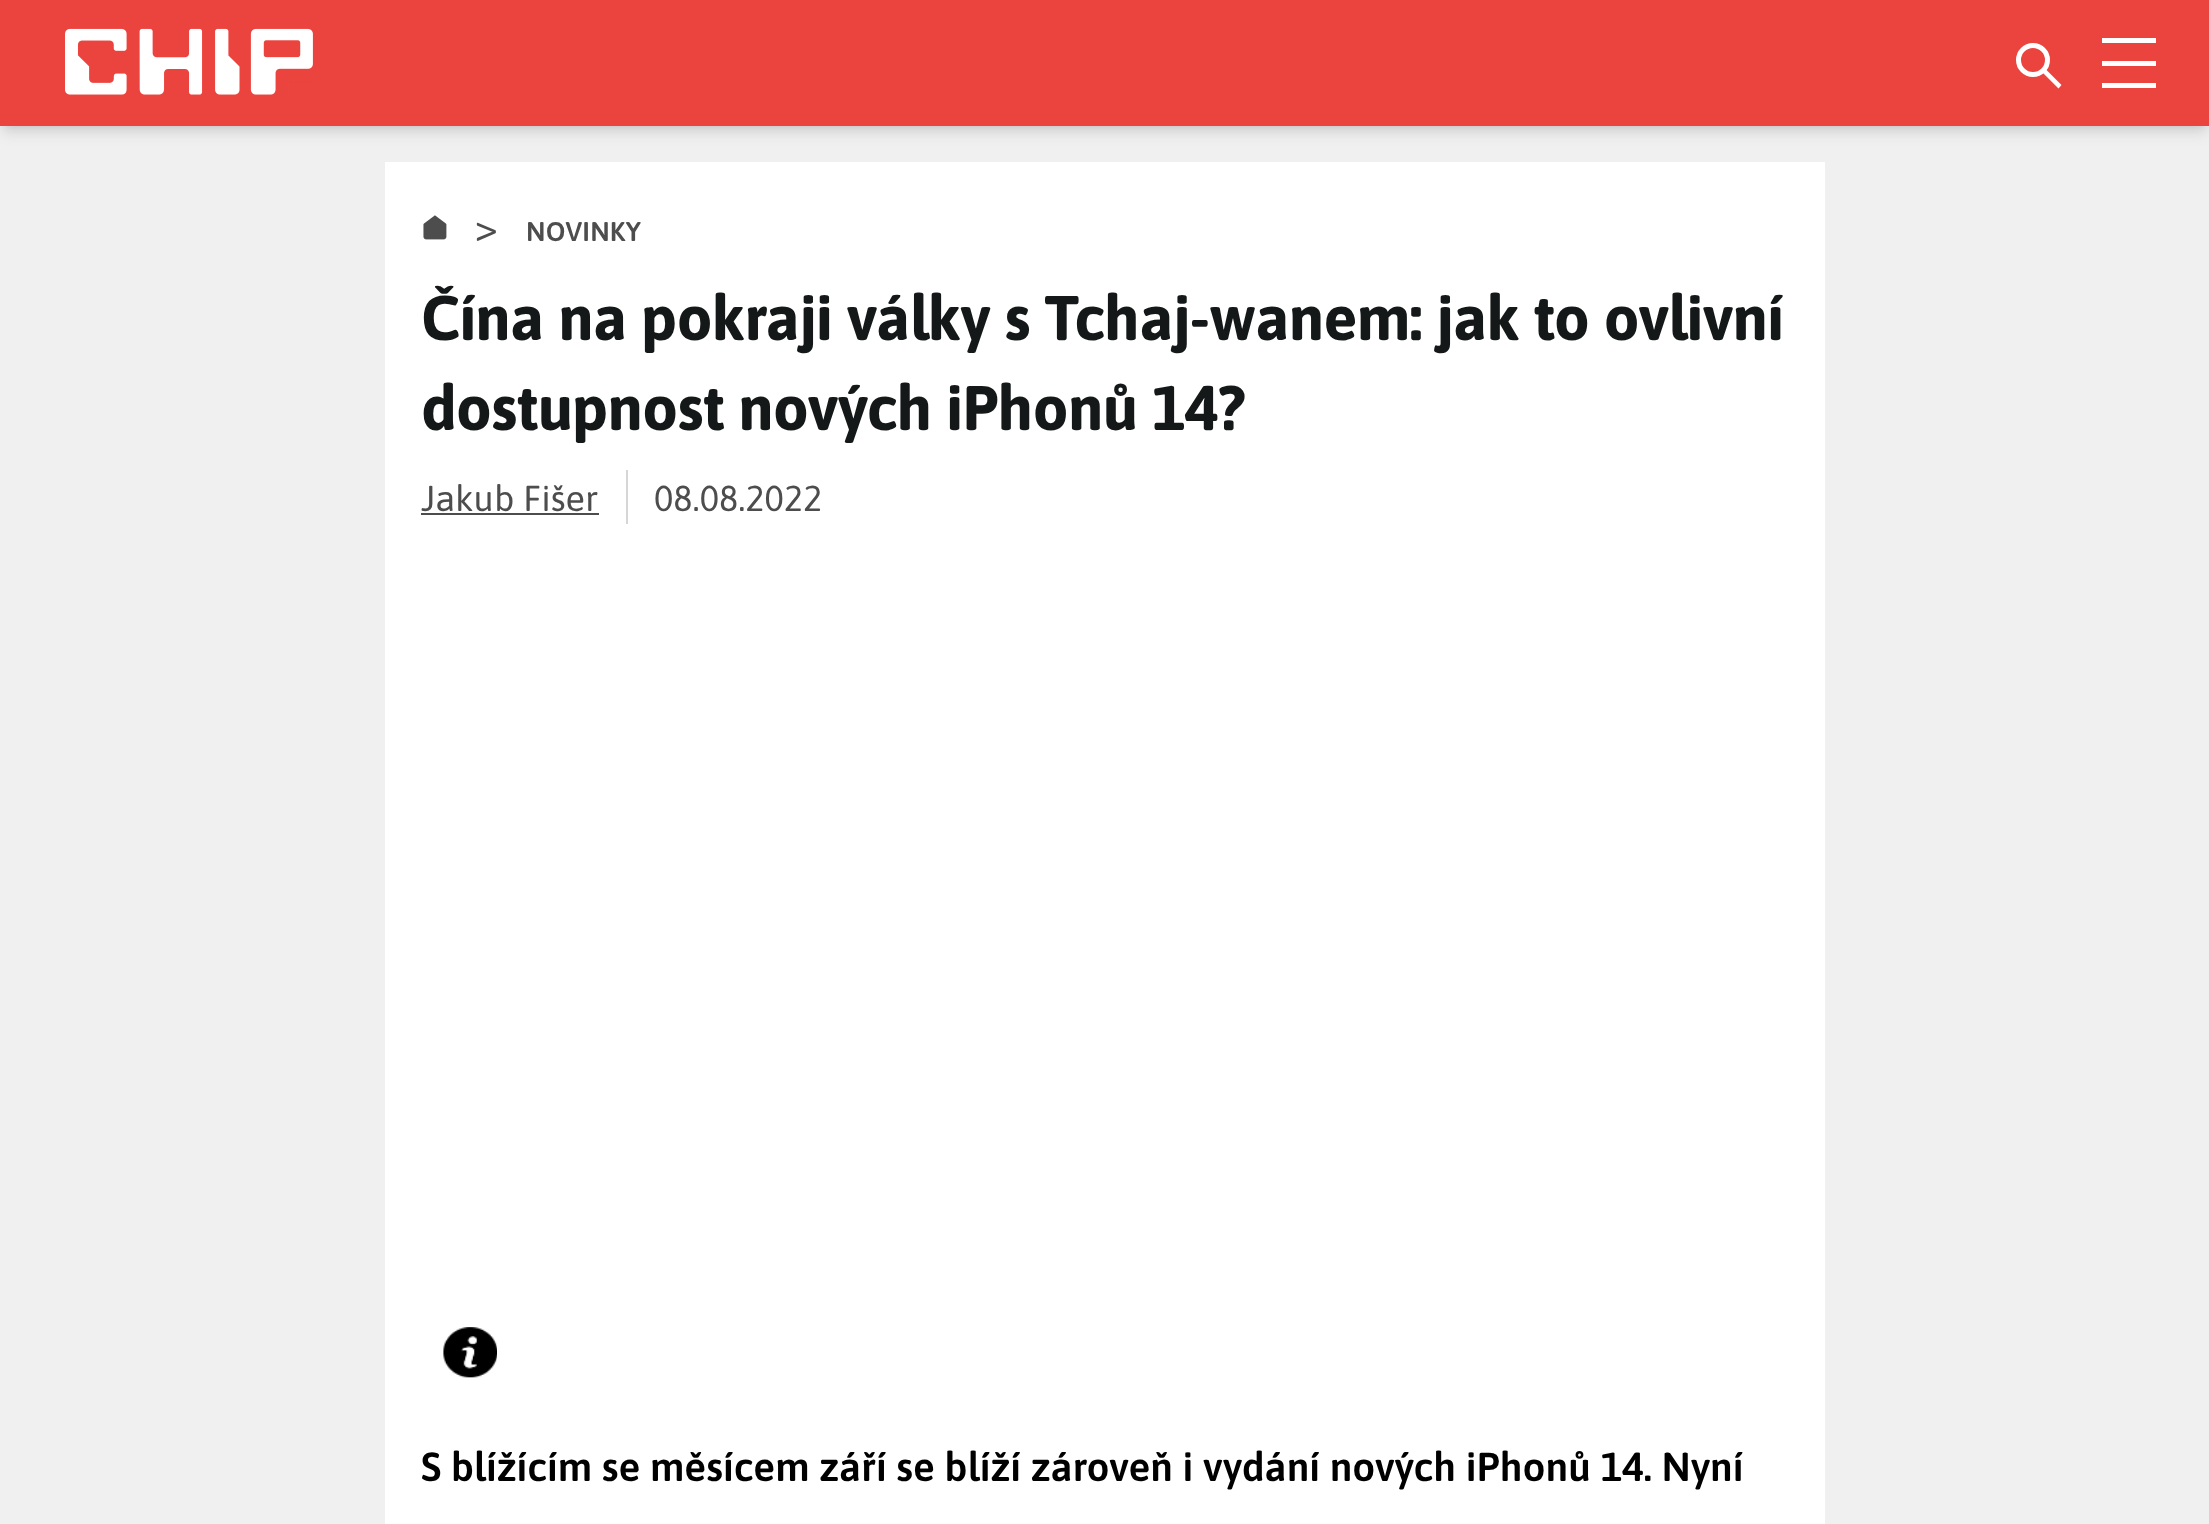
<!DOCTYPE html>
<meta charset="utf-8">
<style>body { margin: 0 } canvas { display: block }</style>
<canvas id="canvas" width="2209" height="1524"></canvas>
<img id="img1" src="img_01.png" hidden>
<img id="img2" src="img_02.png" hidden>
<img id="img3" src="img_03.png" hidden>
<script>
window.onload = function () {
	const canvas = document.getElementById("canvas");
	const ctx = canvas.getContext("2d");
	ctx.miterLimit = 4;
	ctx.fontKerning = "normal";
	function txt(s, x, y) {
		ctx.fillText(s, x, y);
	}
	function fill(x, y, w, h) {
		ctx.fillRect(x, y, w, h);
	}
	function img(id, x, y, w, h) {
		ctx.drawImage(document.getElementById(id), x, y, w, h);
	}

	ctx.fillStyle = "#F0F0F0";
	fill(0, 0, 2209, 1524);
	ctx.fillStyle = "rgba(0, 0, 0, 0.1)";
	ctx.filter = "blur(4.5px)";
	ctx.beginPath();
	ctx.rect(5, 9, 2200, 117);
	ctx.fill();
	ctx.filter = "none";
	ctx.filter = "blur(7px)";
	ctx.beginPath();
	ctx.rect(2, 11, 2205, 122);
	ctx.fill();
	ctx.filter = "none";
	ctx.fillStyle = "#EB443F";
	fill(0, 0, 2209, 126);
	img("img1", 65, 28, 248, 67);
	ctx.beginPath();
	ctx.arc(2033, 60, 14.5, 0, Math.PI * 2);
	ctx.strokeStyle = "#FFFFFF";
	ctx.lineWidth = 5;
	ctx.stroke();
	ctx.fillStyle = "#FFFFFF";
	ctx.beginPath();
	ctx.moveTo(2045.5, 69);
	ctx.lineTo(2061.5, 85);
	ctx.lineTo(2058.5, 88.5);
	ctx.lineTo(2042.5, 72.5);
	ctx.closePath();
	ctx.fill();
	fill(2102, 38, 54, 5);
	fill(2102, 61, 54, 5);
	fill(2102, 83, 54, 5);
	fill(385, 162, 1440, 1362);
	img("img2", 423, 215, 24, 25);
	ctx.fillStyle = "#4D4D4D";
	fill(421, 513, 178, 2);
	ctx.fillStyle = "#D6D6D6";
	fill(626, 470, 2, 54);
	img("img3", 443, 1327, 54, 51);
	ctx.font = "40.5px Asap";
	ctx.fillStyle = "#4D4D4D";
	txt(">", 475, 241);
	ctx.letterSpacing = "0.25px";
	ctx.font = "600 27px Asap";
	txt("NOVINKY", 526, 241);
	ctx.letterSpacing = "-0.57px";
	ctx.font = "bold 63px Asap";
	ctx.fillStyle = "#141818";
	txt("Čína na pokraji války s Tchaj-wanem: jak to ovlivní", 421, 340);
	txt("dostupnost nových iPhonů 14?", 421, 430);
	ctx.letterSpacing = "0px";
	ctx.font = "36px Asap";
	ctx.fillStyle = "#4D4D4D";
	txt("Jakub Fišer", 421, 511);
	txt("08.08.2022", 654, 511);
	ctx.font = "600 40.5px Asap";
	ctx.fillStyle = "#000000";
	txt("S blížícím se měsícem září se blíží zároveň i vydání nových iPhonů 14. Nyní", 421, 1481);
};
</script>
